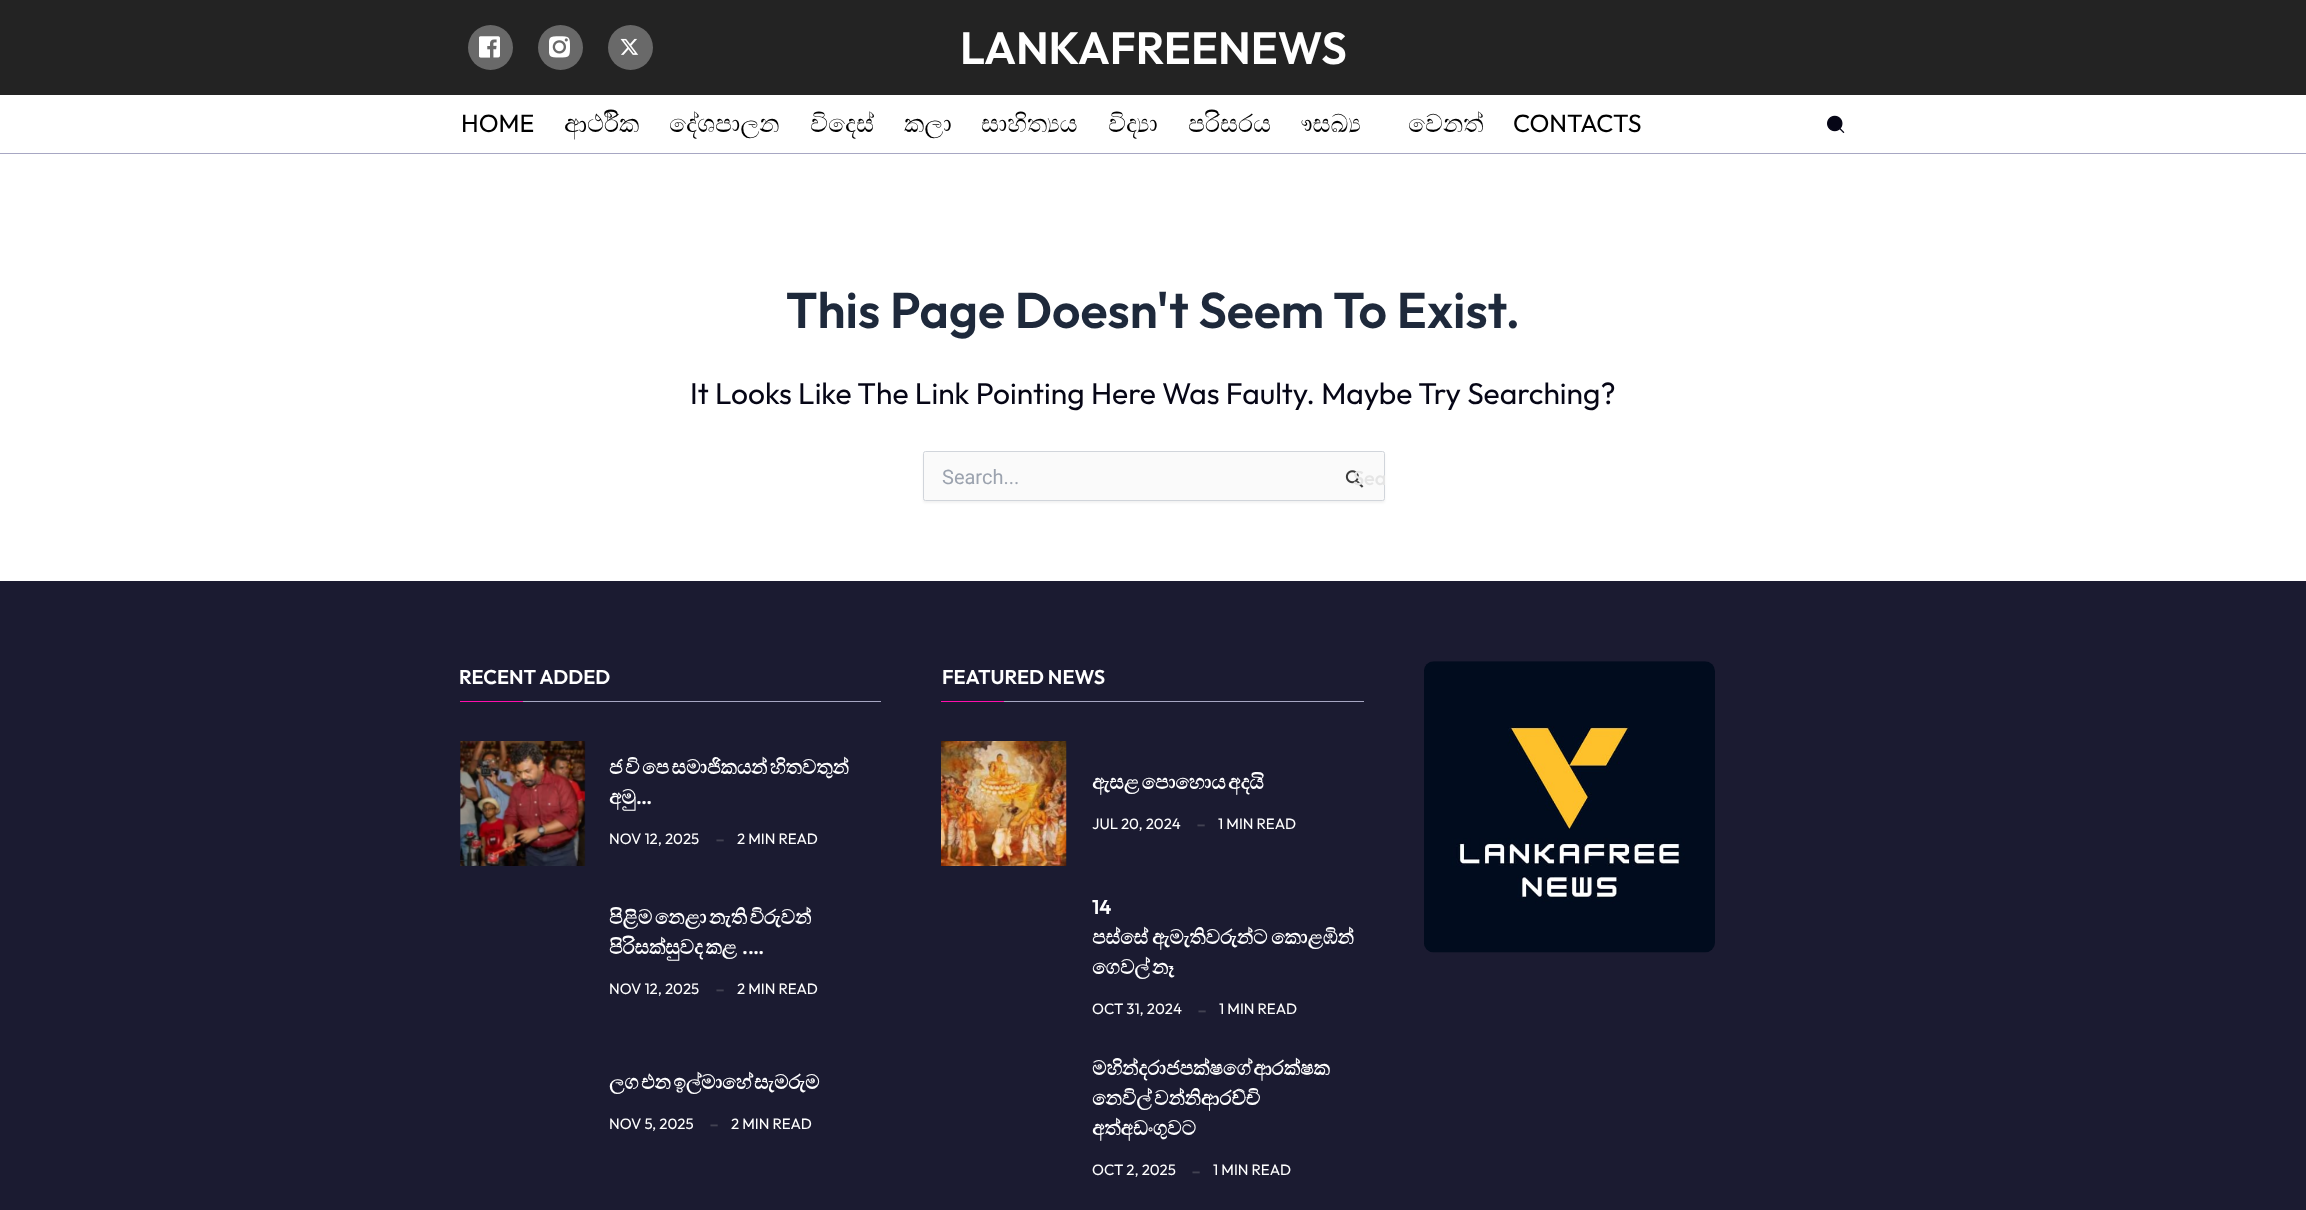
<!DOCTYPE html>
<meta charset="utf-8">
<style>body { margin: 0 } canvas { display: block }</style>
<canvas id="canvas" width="2306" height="1210"></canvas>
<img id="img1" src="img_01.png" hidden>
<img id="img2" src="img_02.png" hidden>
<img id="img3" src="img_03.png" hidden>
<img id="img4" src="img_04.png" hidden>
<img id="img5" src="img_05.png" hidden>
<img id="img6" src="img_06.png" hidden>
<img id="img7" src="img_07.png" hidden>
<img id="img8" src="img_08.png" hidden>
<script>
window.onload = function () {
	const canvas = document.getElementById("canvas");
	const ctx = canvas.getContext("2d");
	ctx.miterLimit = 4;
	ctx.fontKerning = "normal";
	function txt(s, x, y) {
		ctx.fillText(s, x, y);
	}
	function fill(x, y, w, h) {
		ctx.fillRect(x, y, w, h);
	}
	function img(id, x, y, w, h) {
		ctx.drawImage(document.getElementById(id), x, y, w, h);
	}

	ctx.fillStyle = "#FFFFFF";
	fill(0, 0, 2306, 1210);
	ctx.fillStyle = "#232323";
	fill(0, 0, 2306, 95);
	ctx.fillStyle = "#696969";
	ctx.beginPath();
	ctx.arc(490.5, 47.5, 22.5, 0, Math.PI * 2);
	ctx.fill();
	img("img1", 479, 36, 21, 22);
	ctx.beginPath();
	ctx.arc(560.5, 47.5, 22.5, 0, Math.PI * 2);
	ctx.fill();
	img("img2", 549, 36, 21, 22);
	ctx.beginPath();
	ctx.arc(630.5, 47.5, 22.5, 0, Math.PI * 2);
	ctx.fill();
	img("img3", 620, 38, 19, 17);
	ctx.fillStyle = "#A7A7C3";
	fill(0, 153, 2306, 1);
	img("img4", 1827, 115, 18, 18);
	ctx.fillStyle = "rgba(0, 0, 0, 0.05)";
	ctx.filter = "blur(1px)";
	ctx.beginPath();
	ctx.roundRect(923, 453, 462, 50, 2.5);
	ctx.fill();
	ctx.filter = "none";
	ctx.fillStyle = "#FAFAFA";
	ctx.beginPath();
	ctx.roundRect(923.5, 451.5, 461, 49, 2);
	ctx.fill();
	ctx.strokeStyle = "#D1D5DB";
	ctx.stroke();
	img("img5", 1345, 470, 19, 18);
	ctx.fillStyle = "#1B1B31";
	fill(0, 581, 2306, 629);
	ctx.fillStyle = "#FF0FAD";
	fill(460, 701, 63, 1);
	ctx.fillStyle = "#A7A7C3";
	fill(523, 701, 358, 1);
	img("img6", 460, 741, 126, 125);
	ctx.fillStyle = "#FF0FAD";
	fill(941, 701, 63, 1);
	ctx.fillStyle = "#A7A7C3";
	fill(1004, 701, 360, 1);
	img("img7", 941, 741, 126, 125);
	img("img8", 1424, 661, 291, 292);
	ctx.font = "600 45px Outfit";
	ctx.fillStyle = "#FFFFFF";
	txt("LANKAFREENEWS", 960, 64);
	ctx.font = "25px Outfit";
	ctx.fillStyle = "#000000";
	txt("HOME", 461, 132);
	ctx.font = "25px FreeSerif";
	txt("ආර්ථික", 564, 132);
	txt("දේශපාලන", 669, 132);
	txt("විදෙස්", 810, 132);
	txt("කලා", 904, 132);
	txt("සාහිත්‍යය", 981, 132);
	txt("විද්‍යා", 1108, 132);
	txt("පරිසරය", 1188, 132);
	txt("සෞඛ්‍ය", 1301, 132);
	txt("වෙනත්", 1408, 132);
	ctx.font = "25px Outfit";
	txt("CONTACTS", 1513, 132);
	ctx.font = "600 50px Outfit";
	ctx.fillStyle = "#1E293B";
	txt("This Page Doesn't Seem To Exist.", 786, 328);
	ctx.font = "30px Outfit";
	ctx.fillStyle = "#060616";
	txt("It Looks Like The Link Pointing Here Was Faulty. Maybe Try Searching?", 690, 404);
	ctx.font = "20px Roboto";
	ctx.fillStyle = "#9CA3AF";
	txt("Search...", 942, 484);
	ctx.save();
	ctx.beginPath();
	ctx.roundRect(1329, 451, 56, 53, 2.5);
	ctx.clip();
	ctx.font = "500 20px Outfit";
	ctx.fillStyle = "#E5E5E5";
	txt("Sea", 1353, 485);
	ctx.restore();
	ctx.font = "600 20px Outfit";
	ctx.fillStyle = "#FFFFFF";
	txt("RECENT ADDED", 459, 684);
	ctx.wordSpacing = "-2.5px";
	ctx.font = "bold 20px FreeSerif";
	txt("ජ වි පෙ සමාජිකයන් හිතවතුන්", 609, 774);
	ctx.wordSpacing = "0px";
	txt("අමු", 609, 804);
	ctx.font = "600 20px Outfit";
	txt("…", 636, 804);
	ctx.font = "15px Outfit";
	txt("NOV 12, 2025", 609, 844);
	ctx.font = "22px Outfit";
	ctx.fillStyle = "#424252";
	txt("-", 715, 846);
	ctx.font = "15px Outfit";
	ctx.fillStyle = "#FFFFFF";
	txt("2 MIN READ", 737, 844);
	ctx.wordSpacing = "-2.5px";
	ctx.font = "bold 20px FreeSerif";
	txt("පිළිම නෙළා නැති විරුවන්", 609, 924);
	txt("පිරිසක්සුවද කළ", 609, 954);
	ctx.wordSpacing = "0px";
	ctx.font = "600 20px Outfit";
	txt(".…", 742, 954);
	ctx.font = "15px Outfit";
	txt("NOV 12, 2025", 609, 994);
	ctx.font = "22px Outfit";
	ctx.fillStyle = "#424252";
	txt("-", 715, 996);
	ctx.font = "15px Outfit";
	ctx.fillStyle = "#FFFFFF";
	txt("2 MIN READ", 737, 994);
	ctx.wordSpacing = "-2.5px";
	ctx.font = "bold 20px FreeSerif";
	txt("ලග එන ඉල්මාහේ සැමරුම", 609, 1089);
	ctx.wordSpacing = "0px";
	ctx.font = "15px Outfit";
	txt("NOV 5, 2025", 609, 1129);
	ctx.font = "22px Outfit";
	ctx.fillStyle = "#424252";
	txt("-", 709, 1131);
	ctx.font = "15px Outfit";
	ctx.fillStyle = "#FFFFFF";
	txt("2 MIN READ", 731, 1129);
	ctx.font = "600 20px Outfit";
	txt("FEATURED NEWS", 942, 684);
	ctx.wordSpacing = "-2.5px";
	ctx.font = "bold 20px FreeSerif";
	txt("ඇසළ පොහොය අදයි", 1092, 789);
	ctx.wordSpacing = "0px";
	ctx.font = "15px Outfit";
	txt("JUL 20, 2024", 1092, 829);
	ctx.font = "22px Outfit";
	ctx.fillStyle = "#424252";
	txt("-", 1196, 831);
	ctx.font = "15px Outfit";
	ctx.fillStyle = "#FFFFFF";
	txt("1 MIN READ", 1218, 829);
	ctx.font = "600 20px Outfit";
	txt("14", 1092, 914);
	ctx.font = "bold 20px FreeSerif";
	txt("පස්සේ", 1092, 944);
	txt("ඇමැතිවරුන්ට", 1152, 944);
	txt("කොළඹින්", 1271, 944);
	ctx.wordSpacing = "-2.5px";
	txt("ගෙවල් නෑ", 1092, 974);
	ctx.wordSpacing = "0px";
	ctx.font = "15px Outfit";
	txt("OCT 31, 2024", 1092, 1014);
	ctx.font = "22px Outfit";
	ctx.fillStyle = "#424252";
	txt("-", 1197, 1017);
	ctx.font = "15px Outfit";
	ctx.fillStyle = "#FFFFFF";
	txt("1 MIN READ", 1219, 1014);
	ctx.wordSpacing = "-2.5px";
	ctx.font = "bold 20px FreeSerif";
	txt("මහින්දරාජපක්ෂගේ ආරක්ෂක", 1092, 1075);
	txt("නෙවිල් වන්නිආරච්චි", 1092, 1105);
	ctx.wordSpacing = "0px";
	txt("අත්අඩංගුවට", 1092, 1135);
	ctx.font = "15px Outfit";
	txt("OCT 2, 2025", 1092, 1175);
	ctx.font = "22px Outfit";
	ctx.fillStyle = "#424252";
	txt("-", 1191, 1178);
	ctx.font = "15px Outfit";
	ctx.fillStyle = "#FFFFFF";
	txt("1 MIN READ", 1213, 1175);
};
</script>
